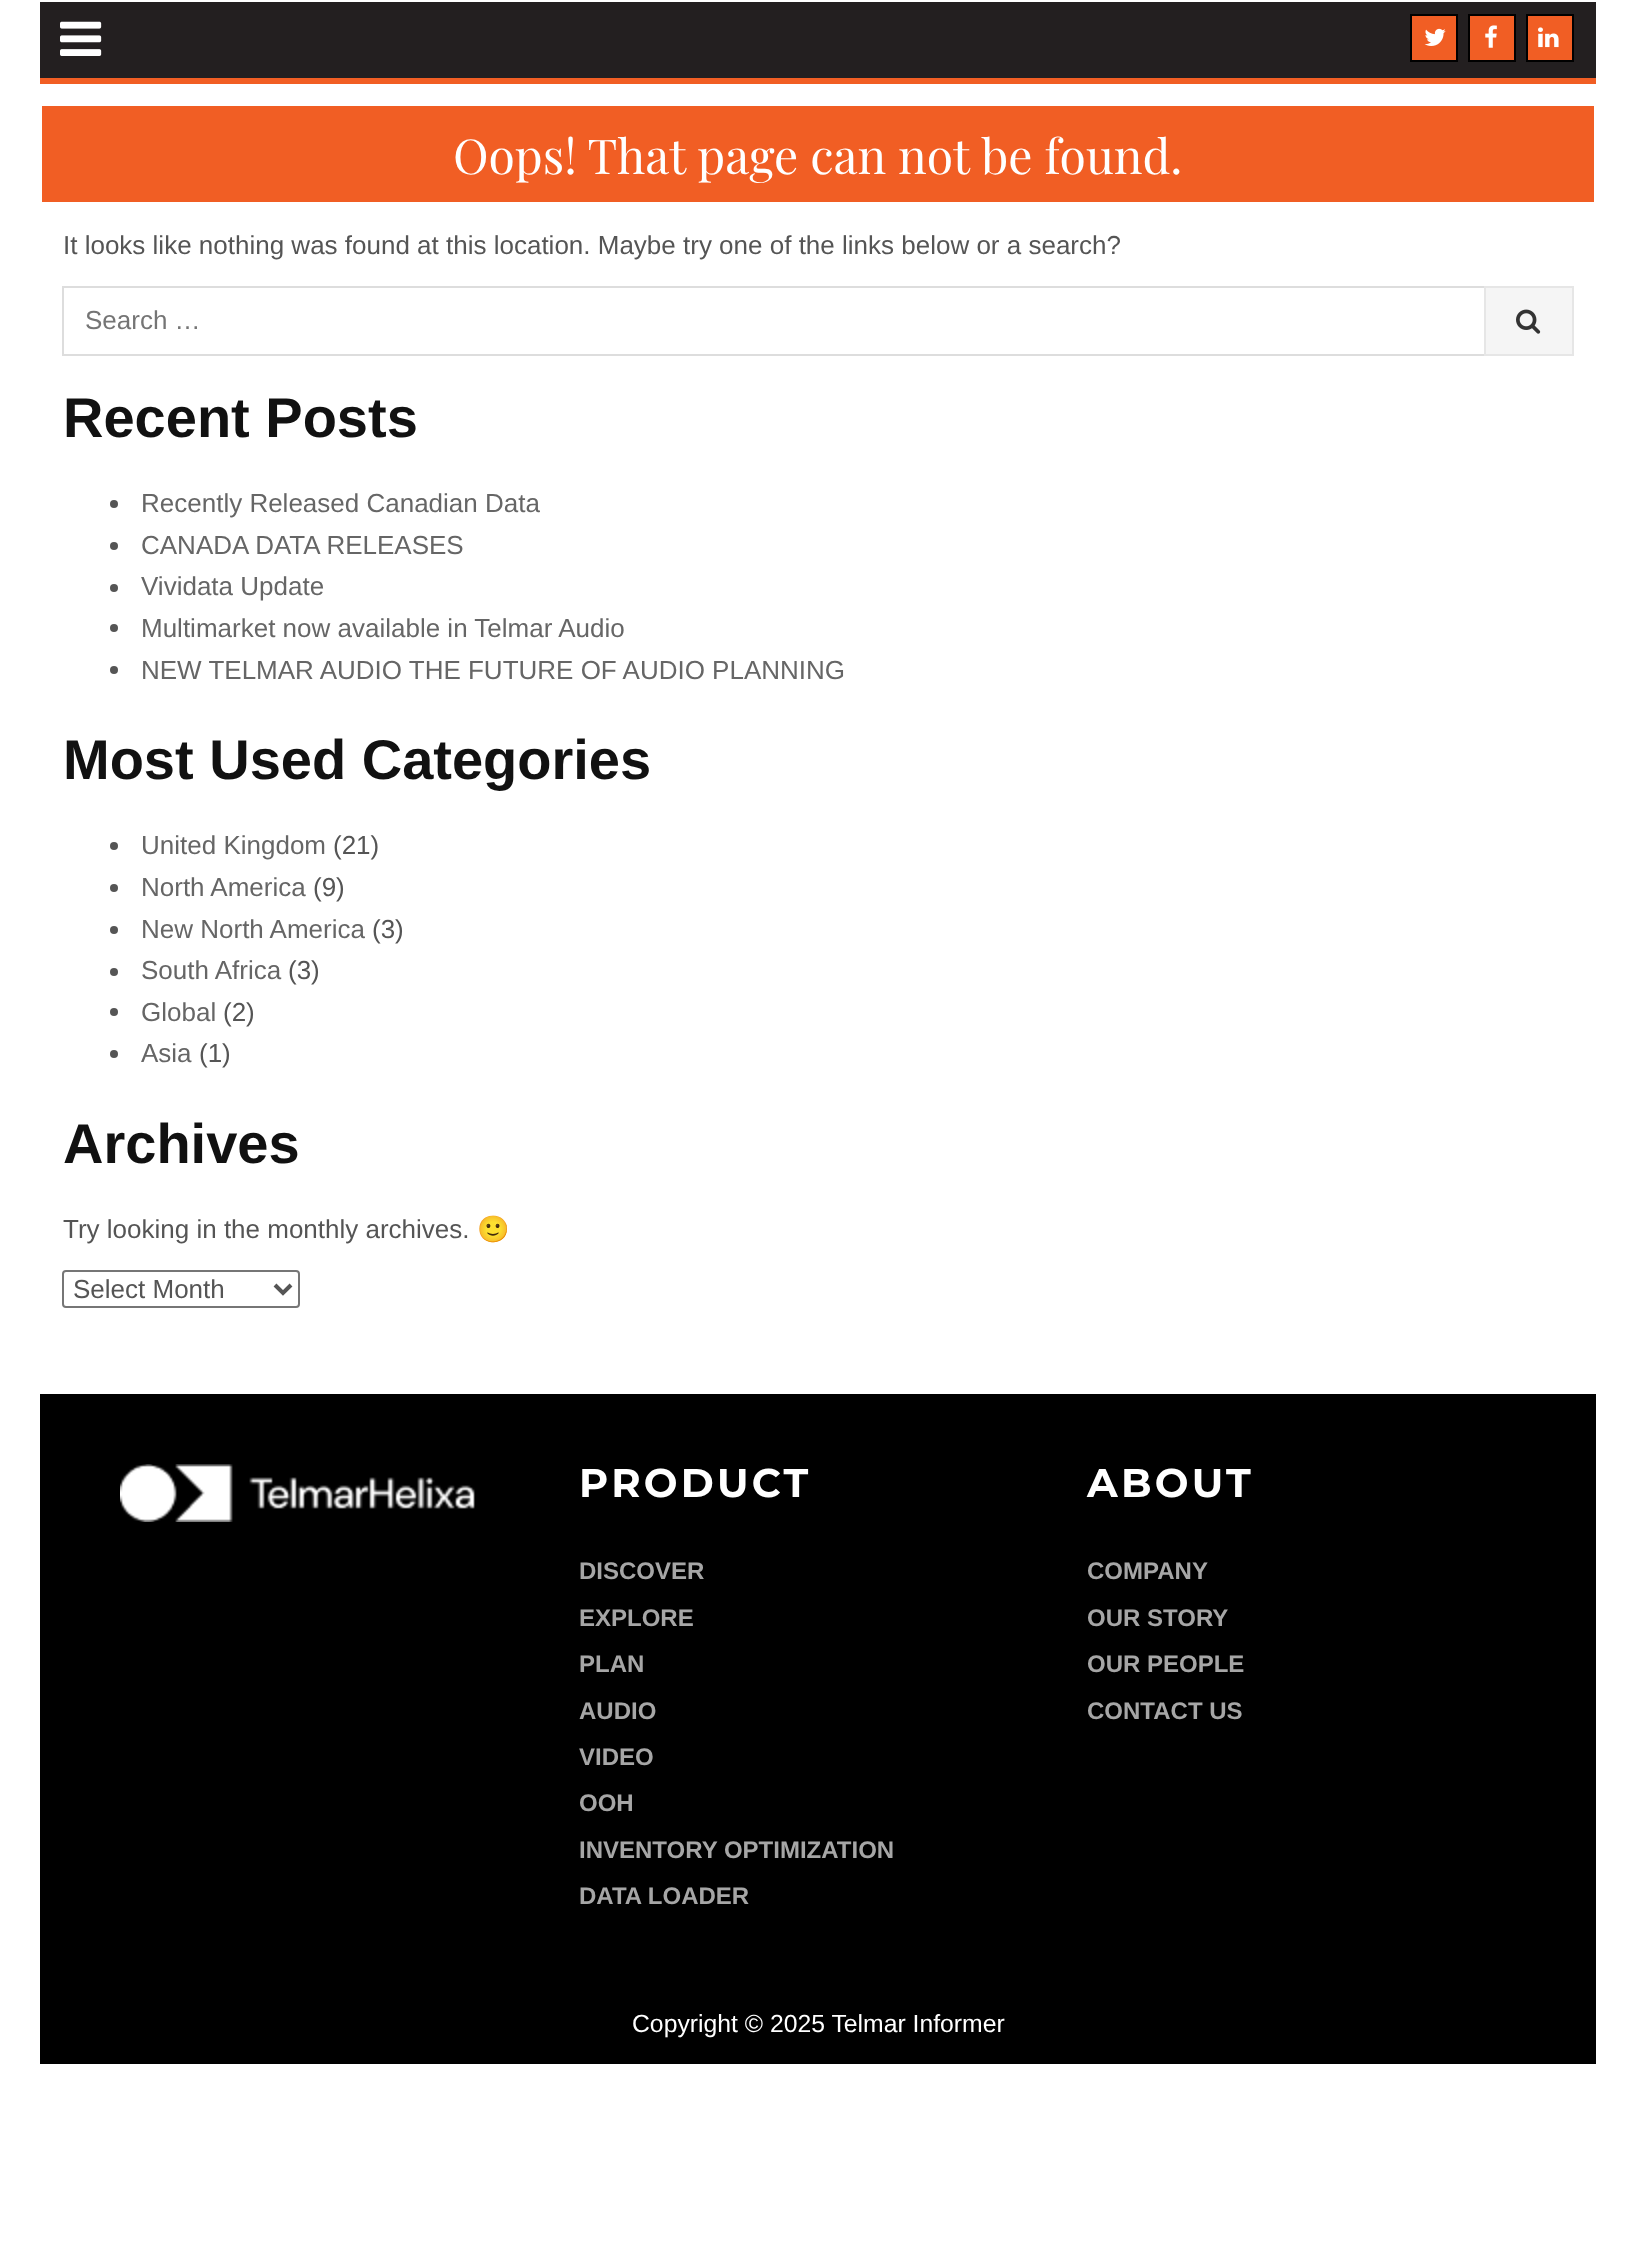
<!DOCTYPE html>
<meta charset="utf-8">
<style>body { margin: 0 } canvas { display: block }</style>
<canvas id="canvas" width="1635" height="2256"></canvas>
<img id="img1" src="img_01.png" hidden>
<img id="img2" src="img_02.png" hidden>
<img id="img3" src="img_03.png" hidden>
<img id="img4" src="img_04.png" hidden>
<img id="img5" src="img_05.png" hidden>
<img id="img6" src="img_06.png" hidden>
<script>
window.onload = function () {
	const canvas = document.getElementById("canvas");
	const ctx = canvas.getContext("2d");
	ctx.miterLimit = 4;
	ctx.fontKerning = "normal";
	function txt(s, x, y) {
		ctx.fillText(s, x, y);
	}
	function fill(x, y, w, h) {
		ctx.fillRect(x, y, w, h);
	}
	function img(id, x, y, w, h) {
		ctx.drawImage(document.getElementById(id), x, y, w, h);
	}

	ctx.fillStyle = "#FFFFFF";
	fill(0, 0, 1635, 2256);
	ctx.fillStyle = "#231F20";
	fill(40, 2, 1556, 76);
	ctx.fillStyle = "#F15E24";
	fill(40, 78, 1556, 6);
	img("img1", 60, 21, 42, 35);
	ctx.beginPath();
	ctx.rect(1411, 15, 46, 46);
	ctx.fill();
	ctx.strokeStyle = "#000000";
	ctx.lineWidth = 2;
	ctx.stroke();
	img("img2", 1424, 28, 22, 18);
	ctx.beginPath();
	ctx.rect(1469, 15, 46, 46);
	ctx.fill();
	ctx.stroke();
	img("img3", 1485, 25, 12, 23);
	ctx.beginPath();
	ctx.rect(1527, 15, 46, 46);
	ctx.fill();
	ctx.stroke();
	img("img4", 1538, 27, 21, 21);
	fill(42, 106, 1552, 96);
	ctx.strokeStyle = "#DDDDDD";
	ctx.strokeRect(63, 287, 1510, 68);
	ctx.fillStyle = "#F5F5F5";
	ctx.beginPath();
	ctx.rect(1485, 287, 88, 68);
	ctx.fill();
	ctx.strokeStyle = "#E6E6E6";
	ctx.stroke();
	img("img5", 1516, 309, 25, 25);
	ctx.fillStyle = "#555555";
	ctx.beginPath();
	ctx.arc(114, 504, 4, 0, Math.PI * 2);
	ctx.fill();
	ctx.beginPath();
	ctx.arc(114, 546, 4, 0, Math.PI * 2);
	ctx.fill();
	ctx.beginPath();
	ctx.arc(114, 588, 4, 0, Math.PI * 2);
	ctx.fill();
	ctx.beginPath();
	ctx.arc(114, 628, 4, 0, Math.PI * 2);
	ctx.fill();
	ctx.beginPath();
	ctx.arc(114, 670, 4, 0, Math.PI * 2);
	ctx.fill();
	ctx.beginPath();
	ctx.arc(114, 846, 4, 0, Math.PI * 2);
	ctx.fill();
	ctx.beginPath();
	ctx.arc(114, 888, 4, 0, Math.PI * 2);
	ctx.fill();
	ctx.beginPath();
	ctx.arc(114, 930, 4, 0, Math.PI * 2);
	ctx.fill();
	ctx.beginPath();
	ctx.arc(114, 972, 4, 0, Math.PI * 2);
	ctx.fill();
	ctx.beginPath();
	ctx.arc(114, 1012, 4, 0, Math.PI * 2);
	ctx.fill();
	ctx.beginPath();
	ctx.arc(114, 1054, 4, 0, Math.PI * 2);
	ctx.fill();
	ctx.beginPath();
	ctx.roundRect(63, 1271, 236, 36, 3);
	ctx.strokeStyle = "#767676";
	ctx.stroke();
	ctx.beginPath();
	ctx.moveTo(275, 1285);
	ctx.lineTo(283, 1293);
	ctx.lineTo(291, 1285);
	ctx.strokeStyle = "#555555";
	ctx.lineWidth = 4;
	ctx.stroke();
	ctx.fillStyle = "#000000";
	fill(40, 1394, 1556, 670);
	img("img6", 120, 1464, 355, 58);
	ctx.font = "48px Playfair Display";
	ctx.fillStyle = "#FFFFFF";
	txt("Oops! That page can not be found.", 453, 174);
	ctx.font = "26px Liberation Sans";
	ctx.fillStyle = "#555555";
	txt("It looks like nothing was found at this location. Maybe try one of the links below or a search?", 63, 254);
	ctx.fillStyle = "#757575";
	txt("Search …", 85, 329);
	ctx.font = "bold 56px Liberation Sans";
	ctx.fillStyle = "#111111";
	txt("Recent Posts", 63, 437);
	ctx.font = "26px Liberation Sans";
	ctx.fillStyle = "#666666";
	txt("Recently Released Canadian Data", 141, 512);
	txt("CANADA DATA RELEASES", 141, 554);
	txt("Vividata Update", 141, 595);
	txt("Multimarket now available in Telmar Audio", 141, 637);
	txt("NEW TELMAR AUDIO THE FUTURE OF AUDIO PLANNING", 141, 679);
	ctx.font = "bold 56px Liberation Sans";
	ctx.fillStyle = "#111111";
	txt("Most Used Categories", 63, 779);
	ctx.font = "26px Liberation Sans";
	ctx.fillStyle = "#666666";
	txt("United Kingdom", 141, 854);
	ctx.fillStyle = "#555555";
	txt("(21)", 333, 854);
	ctx.fillStyle = "#666666";
	txt("North America", 141, 896);
	ctx.fillStyle = "#555555";
	txt("(9)", 313, 896);
	ctx.fillStyle = "#666666";
	txt("New North America", 141, 938);
	ctx.fillStyle = "#555555";
	txt("(3)", 372, 938);
	ctx.fillStyle = "#666666";
	txt("South Africa", 141, 979);
	ctx.fillStyle = "#555555";
	txt("(3)", 288, 979);
	ctx.fillStyle = "#666666";
	txt("Global", 141, 1021);
	ctx.fillStyle = "#555555";
	txt("(2)", 223, 1021);
	ctx.fillStyle = "#666666";
	txt("Asia", 141, 1062);
	ctx.fillStyle = "#555555";
	txt("(1)", 199, 1062);
	ctx.font = "bold 56px Liberation Sans";
	ctx.fillStyle = "#111111";
	txt("Archives", 63, 1163);
	ctx.font = "26px Liberation Sans";
	ctx.fillStyle = "#555555";
	txt("Try looking in the monthly archives.", 63, 1238);
	ctx.font = "26px Noto Color Emoji";
	txt("🙂", 477, 1238);
	ctx.font = "26px Liberation Sans";
	txt("Select Month", 73, 1298);
	ctx.letterSpacing = "3.25px";
	ctx.font = "bold 40px Montserrat";
	ctx.fillStyle = "#FFFFFF";
	txt("PRODUCT", 579, 1497);
	ctx.letterSpacing = "0px";
	ctx.font = "bold 24px Liberation Sans";
	ctx.fillStyle = "#A6A6A6";
	txt("DISCOVER", 579, 1579);
	txt("EXPLORE", 579, 1626);
	txt("PLAN", 579, 1672);
	txt("AUDIO", 579, 1719);
	txt("VIDEO", 579, 1765);
	txt("OOH", 579, 1811);
	txt("INVENTORY OPTIMIZATION", 579, 1858);
	txt("DATA LOADER", 579, 1904);
	ctx.letterSpacing = "3.25px";
	ctx.font = "bold 40px Montserrat";
	ctx.fillStyle = "#FFFFFF";
	txt("ABOUT", 1087, 1497);
	ctx.letterSpacing = "0px";
	ctx.font = "bold 24px Liberation Sans";
	ctx.fillStyle = "#A6A6A6";
	txt("COMPANY", 1087, 1579);
	txt("OUR STORY", 1087, 1626);
	txt("OUR PEOPLE", 1087, 1672);
	txt("CONTACT US", 1087, 1719);
	ctx.font = "24.75px Liberation Sans";
	ctx.fillStyle = "#FFFFFF";
	txt("Copyright © 2025 Telmar Informer", 632, 2032);
};
</script>
